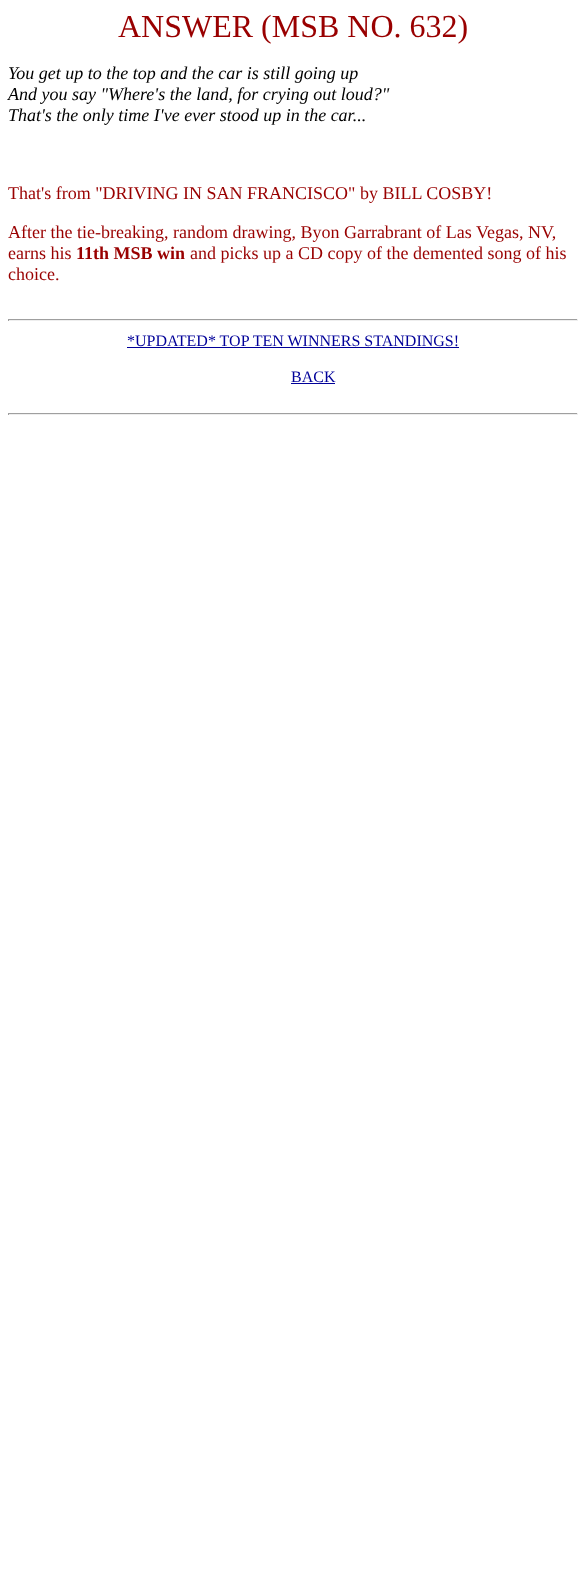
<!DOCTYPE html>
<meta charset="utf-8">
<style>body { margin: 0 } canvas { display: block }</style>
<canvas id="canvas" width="586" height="1569"></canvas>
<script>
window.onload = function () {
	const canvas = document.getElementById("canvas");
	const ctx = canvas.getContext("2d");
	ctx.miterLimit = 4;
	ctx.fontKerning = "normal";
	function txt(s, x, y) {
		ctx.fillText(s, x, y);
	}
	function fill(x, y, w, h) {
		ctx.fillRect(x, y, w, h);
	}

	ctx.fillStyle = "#FFFFFF";
	fill(0, 0, 586, 1569);
	ctx.fillStyle = "#9F9F9F";
	fill(8, 319, 570, 1);
	ctx.fillStyle = "#EEEEEE";
	fill(577, 319, 1, 2);
	fill(8, 320, 570, 1);
	ctx.fillStyle = "#9F9F9F";
	fill(8, 319, 1, 2);
	ctx.fillStyle = "#000099";
	fill(127, 347, 332, 1);
	fill(291, 383, 44, 1);
	ctx.fillStyle = "#9F9F9F";
	fill(8, 413, 570, 1);
	ctx.fillStyle = "#EEEEEE";
	fill(577, 413, 1, 2);
	fill(8, 414, 570, 1);
	ctx.fillStyle = "#9F9F9F";
	fill(8, 413, 1, 2);
	ctx.font = "32px Liberation Serif";
	ctx.fillStyle = "#990000";
	txt("ANSWER (MSB NO. 632)", 118, 37);
	ctx.font = "italic 18px Liberation Serif";
	ctx.fillStyle = "#000000";
	txt("You get up to the top and the car is still going up", 8, 79);
	txt("And you say \"Where's the land, for crying out loud?\"", 8, 100);
	txt("That's the only time I've ever stood up in the car...", 8, 121);
	ctx.font = "18px Liberation Serif";
	ctx.fillStyle = "#990000";
	txt("That's from \"DRIVING IN SAN FRANCISCO\" by BILL COSBY!", 8, 199);
	txt("After the tie-breaking, random drawing, Byon Garrabrant of Las Vegas, NV,", 8, 238);
	txt("earns his", 8, 259);
	ctx.font = "bold 18px Liberation Serif";
	txt("11th MSB win", 76, 259);
	ctx.font = "18px Liberation Serif";
	txt("and picks up a CD copy of the demented song of his", 190, 259);
	txt("choice.", 8, 280);
	ctx.font = "16px Liberation Serif";
	ctx.fillStyle = "#000099";
	txt("*UPDATED* TOP TEN WINNERS STANDINGS!", 127, 346);
	txt("BACK", 291, 382);
};
</script>
